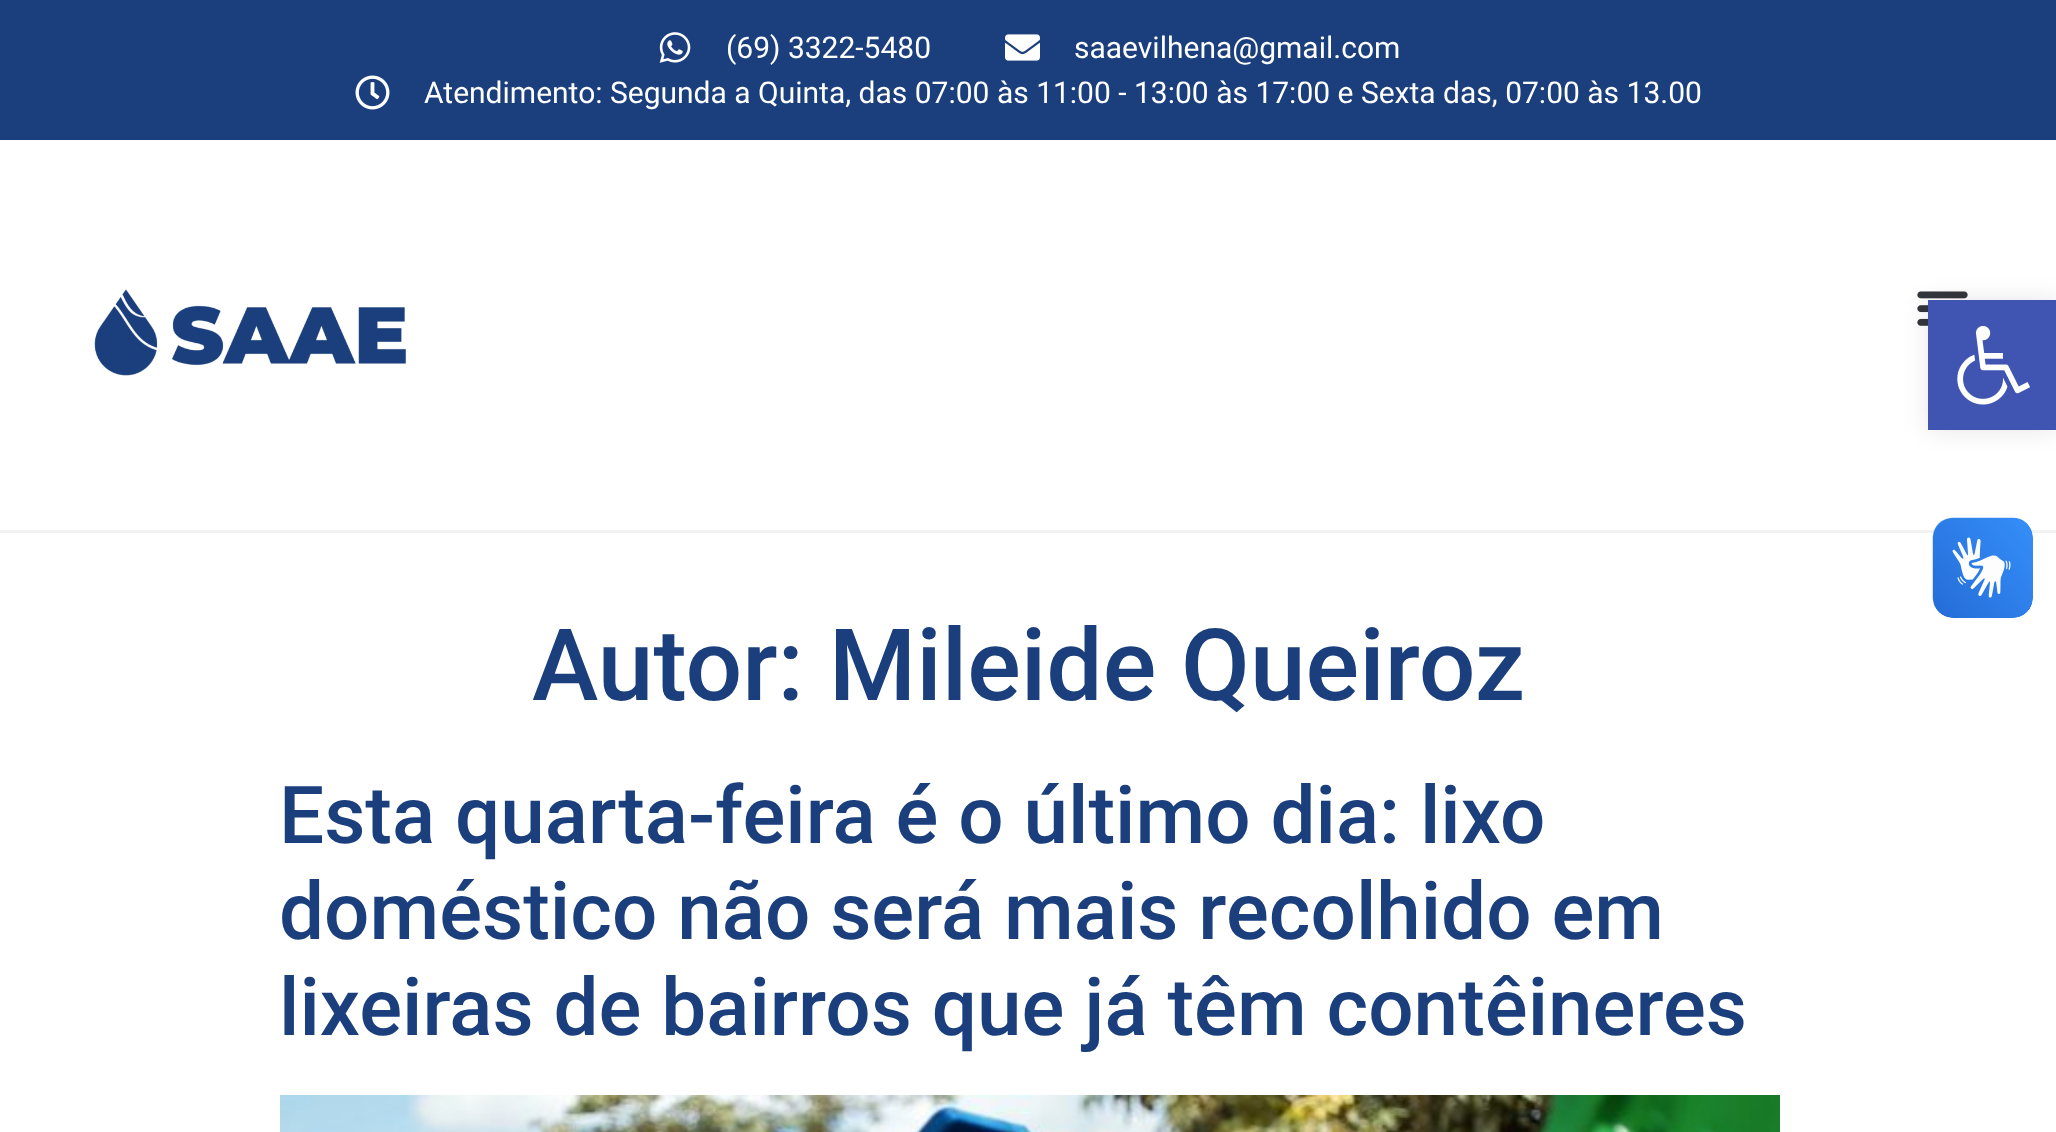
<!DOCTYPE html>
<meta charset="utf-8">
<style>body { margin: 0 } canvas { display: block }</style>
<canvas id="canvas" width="2056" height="1132"></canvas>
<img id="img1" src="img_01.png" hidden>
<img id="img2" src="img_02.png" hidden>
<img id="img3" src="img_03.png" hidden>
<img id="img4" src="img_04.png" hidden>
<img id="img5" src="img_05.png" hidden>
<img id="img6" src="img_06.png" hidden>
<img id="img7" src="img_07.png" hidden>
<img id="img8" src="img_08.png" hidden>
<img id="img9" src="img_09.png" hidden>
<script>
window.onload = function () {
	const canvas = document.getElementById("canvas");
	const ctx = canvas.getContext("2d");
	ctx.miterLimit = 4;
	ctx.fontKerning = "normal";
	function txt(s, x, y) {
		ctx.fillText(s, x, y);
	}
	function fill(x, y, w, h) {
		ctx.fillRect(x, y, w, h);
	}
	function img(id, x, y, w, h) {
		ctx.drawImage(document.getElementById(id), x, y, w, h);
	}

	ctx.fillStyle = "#FFFFFF";
	fill(0, 0, 2056, 1132);
	ctx.fillStyle = "#1A3F7C";
	fill(0, 0, 2056, 140);
	img("img1", 659, 32, 32, 31);
	img("img2", 1005, 34, 35, 27);
	img("img3", 355, 75, 35, 35);
	ctx.fillStyle = "#F2F2F2";
	fill(0, 530, 2056, 3);
	img("img4", 94, 289, 313, 87);
	img("img5", 1917, 291, 51, 35);
	ctx.fillStyle = "rgba(0, 0, 0, 0.1)";
	ctx.filter = "blur(12.5px)";
	ctx.beginPath();
	ctx.rect(1928, 300, 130, 130);
	ctx.fill();
	ctx.filter = "none";
	ctx.fillStyle = "#4054B2";
	fill(1928, 300, 128, 130);
	img("img6", 1957, 326, 73, 79);
	img("img7", 1932, 517, 101, 101);
	img("img8", 1933, 518, 100, 100);
	img("img9", 280, 1095, 1500, 37);
	ctx.font = "30px Roboto";
	ctx.fillStyle = "#FFFFFF";
	txt("(69) 3322-5480", 726, 58);
	txt("saaevilhena@gmail.com", 1074, 58);
	txt("Atendimento: Segunda a Quinta, das 07:00 às 11:00 - 13:00 às 17:00 e Sexta das, 07:00 às 13.00", 424, 103);
	ctx.font = "500 100px Roboto";
	ctx.fillStyle = "#1A3F7C";
	txt("Autor: Mileide Queiroz", 532, 700);
	ctx.font = "500 80px Roboto";
	txt("Esta quarta-feira é o último dia: lixo", 279, 843);
	txt("doméstico não será mais recolhido em", 279, 939);
	txt("lixeiras de bairros que já têm contêineres", 279, 1035);
};
</script>
